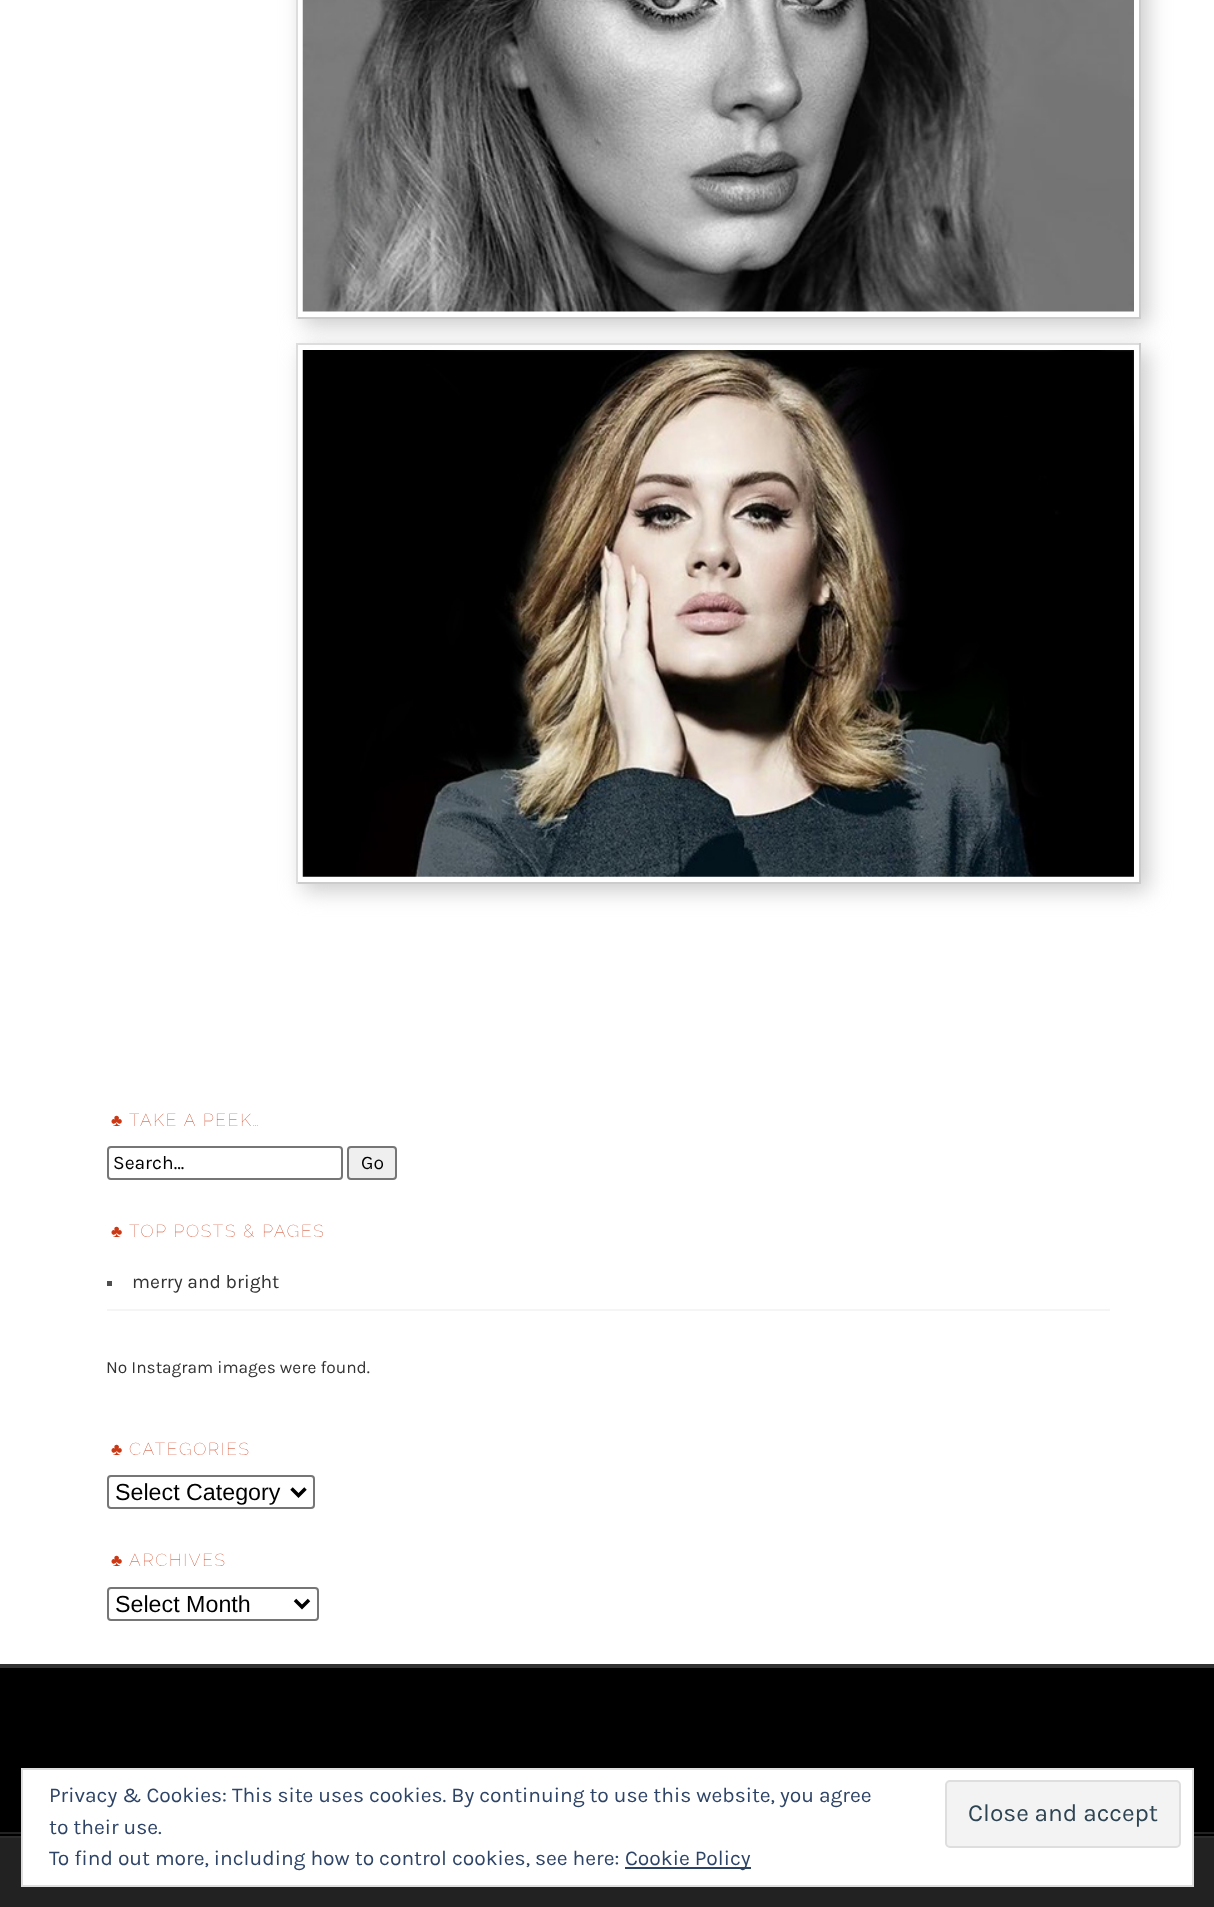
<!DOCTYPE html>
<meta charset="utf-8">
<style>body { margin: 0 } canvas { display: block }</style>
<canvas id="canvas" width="1214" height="1907"></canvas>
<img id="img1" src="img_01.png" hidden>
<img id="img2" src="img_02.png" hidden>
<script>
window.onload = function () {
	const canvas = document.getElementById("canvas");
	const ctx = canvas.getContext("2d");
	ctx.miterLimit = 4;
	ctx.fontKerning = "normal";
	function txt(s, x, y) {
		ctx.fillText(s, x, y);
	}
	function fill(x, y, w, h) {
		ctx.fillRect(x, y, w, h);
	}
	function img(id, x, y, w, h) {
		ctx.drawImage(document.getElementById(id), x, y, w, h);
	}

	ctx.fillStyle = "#FFFFFF";
	fill(0, 0, 1214, 1907);
	ctx.save();
	ctx.beginPath();
	ctx.moveTo(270, 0);
	ctx.lineTo(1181, 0);
	ctx.lineTo(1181, 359);
	ctx.lineTo(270, 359);
	ctx.closePath();
	ctx.moveTo(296, -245);
	ctx.lineTo(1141, -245);
	ctx.lineTo(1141, 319);
	ctx.lineTo(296, 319);
	ctx.closePath();
	ctx.clip("evenodd");
	ctx.fillStyle = "#CCCCCC";
	ctx.filter = "blur(10.5px)";
	ctx.beginPath();
	ctx.rect(303, -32, 845, 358);
	ctx.fill();
	ctx.filter = "none";
	ctx.restore();
	ctx.fillStyle = "#CCCCCC";
	fill(1139, 0, 2, 319);
	fill(296, 317, 845, 2);
	ctx.fillStyle = "#DDDDDD";
	fill(296, 0, 2, 319);
	img("img1", 302, 0, 832, 312);
	ctx.save();
	ctx.beginPath();
	ctx.moveTo(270, 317);
	ctx.lineTo(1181, 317);
	ctx.lineTo(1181, 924);
	ctx.lineTo(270, 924);
	ctx.closePath();
	ctx.moveTo(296, 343);
	ctx.lineTo(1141, 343);
	ctx.lineTo(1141, 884);
	ctx.lineTo(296, 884);
	ctx.closePath();
	ctx.clip("evenodd");
	ctx.fillStyle = "#CCCCCC";
	ctx.filter = "blur(10.5px)";
	ctx.beginPath();
	ctx.rect(303, 350, 845, 541);
	ctx.fill();
	ctx.filter = "none";
	ctx.restore();
	fill(296, 343, 845, 2);
	ctx.fillStyle = "#CCCCCC";
	fill(1139, 343, 2, 541);
	fill(296, 882, 845, 2);
	ctx.fillStyle = "#DDDDDD";
	fill(296, 343, 2, 541);
	img("img2", 302, 350, 832, 527);
	ctx.beginPath();
	ctx.roundRect(108, 1147, 234, 32, 3);
	ctx.strokeStyle = "#767676";
	ctx.lineWidth = 2;
	ctx.stroke();
	ctx.fillStyle = "#EFEFEF";
	ctx.beginPath();
	ctx.roundRect(348, 1147, 48, 32, 3);
	ctx.fill();
	ctx.stroke();
	ctx.fillStyle = "#F5F5F5";
	fill(107, 1309, 1003, 2);
	ctx.fillStyle = "#4F4F4F";
	fill(107, 1281, 5, 5);
	ctx.beginPath();
	ctx.roundRect(108, 1476, 206, 32, 3);
	ctx.stroke();
	ctx.beginPath();
	ctx.moveTo(291.5, 1488.5);
	ctx.lineTo(298.5, 1495.5);
	ctx.lineTo(305.5, 1488.5);
	ctx.strokeStyle = "#000000";
	ctx.lineWidth = 3.5;
	ctx.stroke();
	ctx.beginPath();
	ctx.roundRect(108, 1588, 210, 32, 3);
	ctx.strokeStyle = "#767676";
	ctx.lineWidth = 2;
	ctx.stroke();
	ctx.beginPath();
	ctx.moveTo(295, 1600);
	ctx.lineTo(302, 1607);
	ctx.lineTo(309, 1600);
	ctx.strokeStyle = "#000000";
	ctx.lineWidth = 3.5;
	ctx.stroke();
	ctx.fillStyle = "#000000";
	fill(0, 1668, 1214, 168);
	ctx.fillStyle = "#333333";
	fill(0, 1664, 1214, 4);
	ctx.fillStyle = "#222222";
	fill(0, 1832, 1214, 2);
	fill(0, 1838, 1214, 69);
	ctx.fillStyle = "#2C2C2C";
	fill(0, 1836, 1214, 2);
	ctx.fillStyle = "#FFFFFF";
	ctx.beginPath();
	ctx.rect(22, 1769, 1171, 117);
	ctx.fill();
	ctx.strokeStyle = "#DEDEDE";
	ctx.lineWidth = 2;
	ctx.stroke();
	ctx.fillStyle = "#F3F3F3";
	ctx.beginPath();
	ctx.roundRect(946, 1781, 234, 66, 4);
	ctx.fill();
	ctx.stroke();
	ctx.fillStyle = "#2E4467";
	fill(625, 1867, 126, 2);
	ctx.letterSpacing = "1.75px";
	ctx.font = "17.25px Liberation Sans";
	ctx.fillStyle = "#CC3814";
	txt("♣", 111, 1126);
	ctx.font = "100 17.25px Raleway";
	txt("TAKE A PEEK…", 129, 1126);
	ctx.letterSpacing = "0px";
	ctx.font = "19.25px Karla";
	ctx.fillStyle = "#000000";
	txt("Search…", 113, 1169);
	txt("Go", 361, 1169);
	ctx.letterSpacing = "1.75px";
	ctx.font = "17.25px Liberation Sans";
	ctx.fillStyle = "#CC3814";
	txt("♣", 111, 1237);
	ctx.font = "100 17.25px Raleway";
	txt("TOP POSTS & PAGES", 129, 1237);
	ctx.letterSpacing = "0px";
	ctx.font = "19.25px Karla";
	ctx.fillStyle = "#333333";
	txt("merry and bright", 132, 1288);
	ctx.font = "17.25px Karla";
	txt("No Instagram images were found.", 106, 1373);
	ctx.letterSpacing = "1.75px";
	ctx.font = "17.25px Liberation Sans";
	ctx.fillStyle = "#CC3814";
	txt("♣", 111, 1455);
	ctx.font = "100 17.25px Raleway";
	txt("CATEGORIES", 129, 1455);
	ctx.letterSpacing = "0px";
	ctx.font = "23.25px Liberation Sans";
	ctx.fillStyle = "#000000";
	txt("Select Category", 115, 1500);
	ctx.letterSpacing = "1.75px";
	ctx.font = "17.25px Liberation Sans";
	ctx.fillStyle = "#CC3814";
	txt("♣", 111, 1566);
	ctx.font = "100 17.25px Raleway";
	txt("ARCHIVES", 129, 1566);
	ctx.letterSpacing = "0px";
	ctx.font = "23.25px Liberation Sans";
	ctx.fillStyle = "#000000";
	txt("Select Month", 115, 1612);
	ctx.font = "21px Karla";
	ctx.fillStyle = "#2E4467";
	txt("Privacy & Cookies: This site uses cookies. By continuing to use this website, you agree", 49, 1802);
	txt("to their use.", 49, 1834);
	ctx.font = "24.5px Karla";
	ctx.fillStyle = "#2E4453";
	txt("Close and accept", 968, 1821);
	ctx.font = "21px Karla";
	ctx.fillStyle = "#2E4467";
	txt("To find out more, including how to control cookies, see here:", 49, 1865);
	txt("Cookie Policy", 625, 1865);
};
</script>
